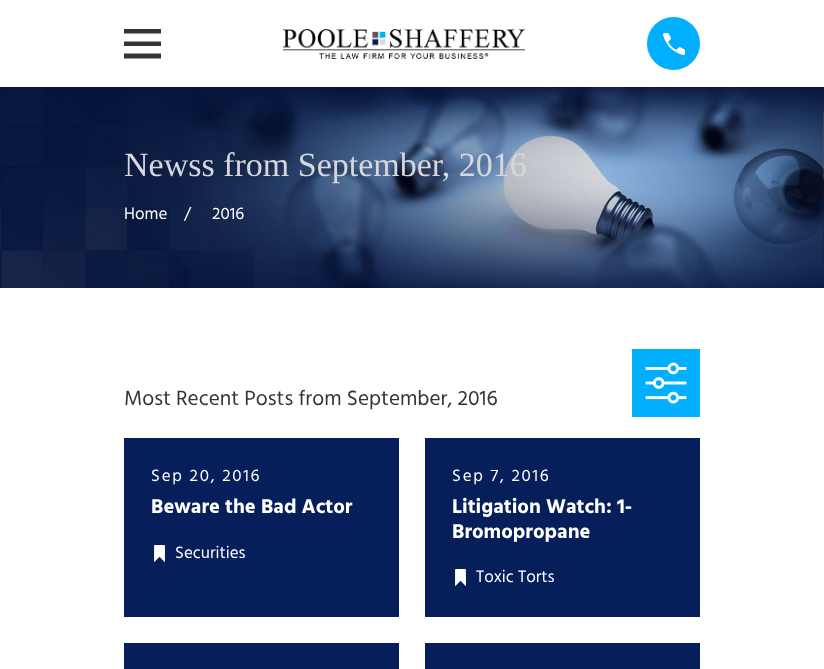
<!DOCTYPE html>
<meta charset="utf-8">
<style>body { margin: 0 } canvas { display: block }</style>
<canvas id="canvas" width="824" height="669"></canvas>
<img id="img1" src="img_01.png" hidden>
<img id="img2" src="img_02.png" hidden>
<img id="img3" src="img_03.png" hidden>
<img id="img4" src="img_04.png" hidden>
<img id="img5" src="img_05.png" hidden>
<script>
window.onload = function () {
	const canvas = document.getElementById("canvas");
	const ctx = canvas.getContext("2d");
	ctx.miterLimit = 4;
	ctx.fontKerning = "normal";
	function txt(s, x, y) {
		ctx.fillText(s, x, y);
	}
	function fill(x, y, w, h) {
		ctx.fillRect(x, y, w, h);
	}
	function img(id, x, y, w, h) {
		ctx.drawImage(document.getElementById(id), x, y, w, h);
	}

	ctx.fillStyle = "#FFFFFF";
	fill(0, 0, 824, 669);
	ctx.save();
	ctx.beginPath();
	ctx.rect(124, 25, 37, 37);
	ctx.clip();
	ctx.fillStyle = "#343434";
	ctx.beginPath();
	ctx.moveTo(124, 29);
	ctx.lineTo(124, 33.5);
	ctx.lineTo(161.5, 33.5);
	ctx.lineTo(161.5, 29);
	ctx.closePath();
	ctx.moveTo(124, 41.5);
	ctx.lineTo(124, 46);
	ctx.lineTo(161.5, 46);
	ctx.lineTo(161.5, 41.5);
	ctx.closePath();
	ctx.moveTo(124, 53.5);
	ctx.lineTo(124, 58.5);
	ctx.lineTo(161.5, 58.5);
	ctx.lineTo(161.5, 53.5);
	ctx.closePath();
	ctx.fill();
	ctx.restore();
	img("img1", 283, 29, 242, 30);
	ctx.fillStyle = "#00AFFE";
	ctx.beginPath();
	ctx.arc(673.5, 43.5, 26.5, 0, Math.PI * 2);
	ctx.fill();
	img("img2", 663, 33, 22, 22);
	img("img3", 0, 87, 824, 201);
	fill(632, 349, 68, 68);
	img("img4", 645, 362, 42, 42);
	ctx.fillStyle = "#061E5A";
	fill(124, 438, 275, 179);
	img("img5", 154, 545, 11, 17);
	fill(425, 438, 275, 179);
	img("img5", 455, 569, 11, 17);
	fill(124, 643, 275, 26);
	fill(425, 643, 275, 26);
	ctx.font = "34px Liberation Serif";
	ctx.fillStyle = "#D8D7DC";
	txt("Newss from September, 2016", 124, 176);
	ctx.font = "17px Hind";
	ctx.fillStyle = "#FFFFFF";
	txt("Home", 124, 219);
	txt("/", 184, 219);
	txt("2016", 212, 219);
	ctx.font = "21.25px Hind";
	ctx.fillStyle = "#343434";
	txt("Most Recent Posts from September, 2016", 124, 405);
	ctx.letterSpacing = "1.75px";
	ctx.font = "17px Hind";
	ctx.fillStyle = "#FFFFFF";
	txt("Sep 20, 2016", 151, 481);
	ctx.letterSpacing = "0px";
	ctx.font = "bold 20.5px Hind";
	txt("Beware the Bad Actor", 151, 513);
	ctx.font = "17px Hind";
	txt("Securities", 175, 558);
	ctx.letterSpacing = "1.75px";
	txt("Sep 7, 2016", 452, 481);
	ctx.letterSpacing = "0px";
	ctx.font = "bold 20.5px Hind";
	txt("Litigation Watch: 1-", 452, 513);
	txt("Bromopropane", 452, 538);
	ctx.font = "17px Hind";
	txt("Toxic Torts", 476, 582);
};
</script>
